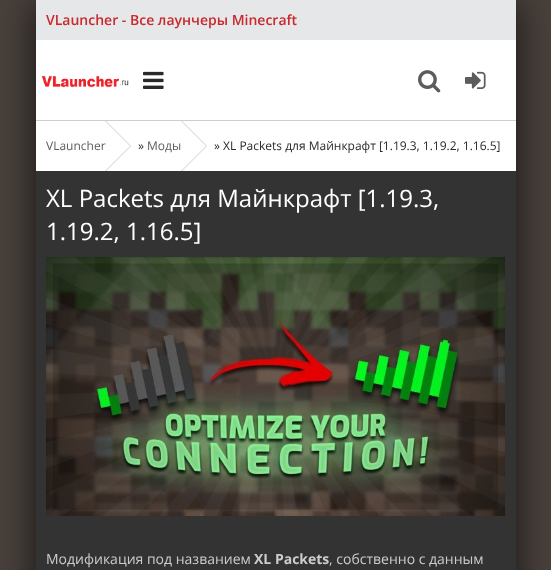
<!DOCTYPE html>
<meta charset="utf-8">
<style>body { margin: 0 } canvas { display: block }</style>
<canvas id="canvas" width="551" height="570"></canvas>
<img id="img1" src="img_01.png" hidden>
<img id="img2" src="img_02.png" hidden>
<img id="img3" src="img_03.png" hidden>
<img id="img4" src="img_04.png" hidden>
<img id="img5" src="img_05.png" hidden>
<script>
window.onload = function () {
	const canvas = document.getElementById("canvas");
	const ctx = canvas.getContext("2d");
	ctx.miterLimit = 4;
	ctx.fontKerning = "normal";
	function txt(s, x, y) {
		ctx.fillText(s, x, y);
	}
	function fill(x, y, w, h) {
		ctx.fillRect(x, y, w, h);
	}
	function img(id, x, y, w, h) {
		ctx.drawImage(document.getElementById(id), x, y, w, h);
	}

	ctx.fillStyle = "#49413C";
	fill(0, 0, 551, 570);
	ctx.fillStyle = "rgba(0, 0, 0, 0.7)";
	ctx.filter = "blur(20px)";
	ctx.beginPath();
	ctx.rect(36, 0, 480, 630);
	ctx.fill();
	ctx.filter = "none";
	ctx.fillStyle = "#E6E7E8";
	fill(36, 0, 480, 40);
	ctx.fillStyle = "#CECECE";
	fill(36, 120, 480, 1);
	ctx.fillStyle = "#FFFFFF";
	fill(36, 40, 480, 80);
	img("img1", 41, 75, 88, 13);
	img("img2", 143, 71, 21, 18);
	img("img3", 418, 70, 23, 23);
	img("img4", 465, 71, 21, 18);
	fill(36, 121, 480, 50);
	ctx.fillStyle = "#CECECE";
	ctx.beginPath();
	ctx.moveTo(105, 172);
	ctx.lineTo(105, 120);
	ctx.lineTo(131, 146);
	ctx.closePath();
	ctx.fill();
	ctx.fillStyle = "#FFFFFF";
	ctx.beginPath();
	ctx.moveTo(105, 171);
	ctx.lineTo(105, 121);
	ctx.lineTo(130, 146);
	ctx.closePath();
	ctx.fill();
	ctx.fillStyle = "#CECECE";
	ctx.beginPath();
	ctx.moveTo(181, 172);
	ctx.lineTo(181, 120);
	ctx.lineTo(207, 146);
	ctx.closePath();
	ctx.fill();
	ctx.fillStyle = "#FFFFFF";
	ctx.beginPath();
	ctx.moveTo(181, 171);
	ctx.lineTo(181, 121);
	ctx.lineTo(206, 146);
	ctx.closePath();
	ctx.fill();
	ctx.fillStyle = "#333333";
	fill(36, 171, 480, 399);
	img("img5", 46, 257, 459, 259);
	ctx.font = "600 14px Open Sans";
	ctx.fillStyle = "#C9282D";
	txt("VLauncher - Все лаунчеры Minecraft", 46, 25);
	ctx.font = "12px Open Sans";
	ctx.fillStyle = "#5C5C5C";
	txt("VLauncher", 46, 150);
	ctx.fillStyle = "#2A2A2A";
	txt("»", 138, 150);
	ctx.fillStyle = "#5C5C5C";
	txt("Моды", 147, 150);
	ctx.fillStyle = "#2A2A2A";
	txt("» XL Packets для Майнкрафт [1.19.3, 1.19.2, 1.16.5]", 214, 150);
	ctx.font = "24px Open Sans";
	ctx.fillStyle = "#FFFFFF";
	txt("XL Packets для Майнкрафт [1.19.3,", 46, 207);
	txt("1.19.2, 1.16.5]", 46, 240);
	ctx.font = "14px Open Sans";
	ctx.fillStyle = "#CCCCCC";
	txt("Модификация под названием", 46, 564);
	ctx.font = "bold 14px Open Sans";
	txt("XL Packets", 254, 564);
	ctx.font = "14px Open Sans";
	txt(", собственно с данным", 329, 564);
};
</script>
